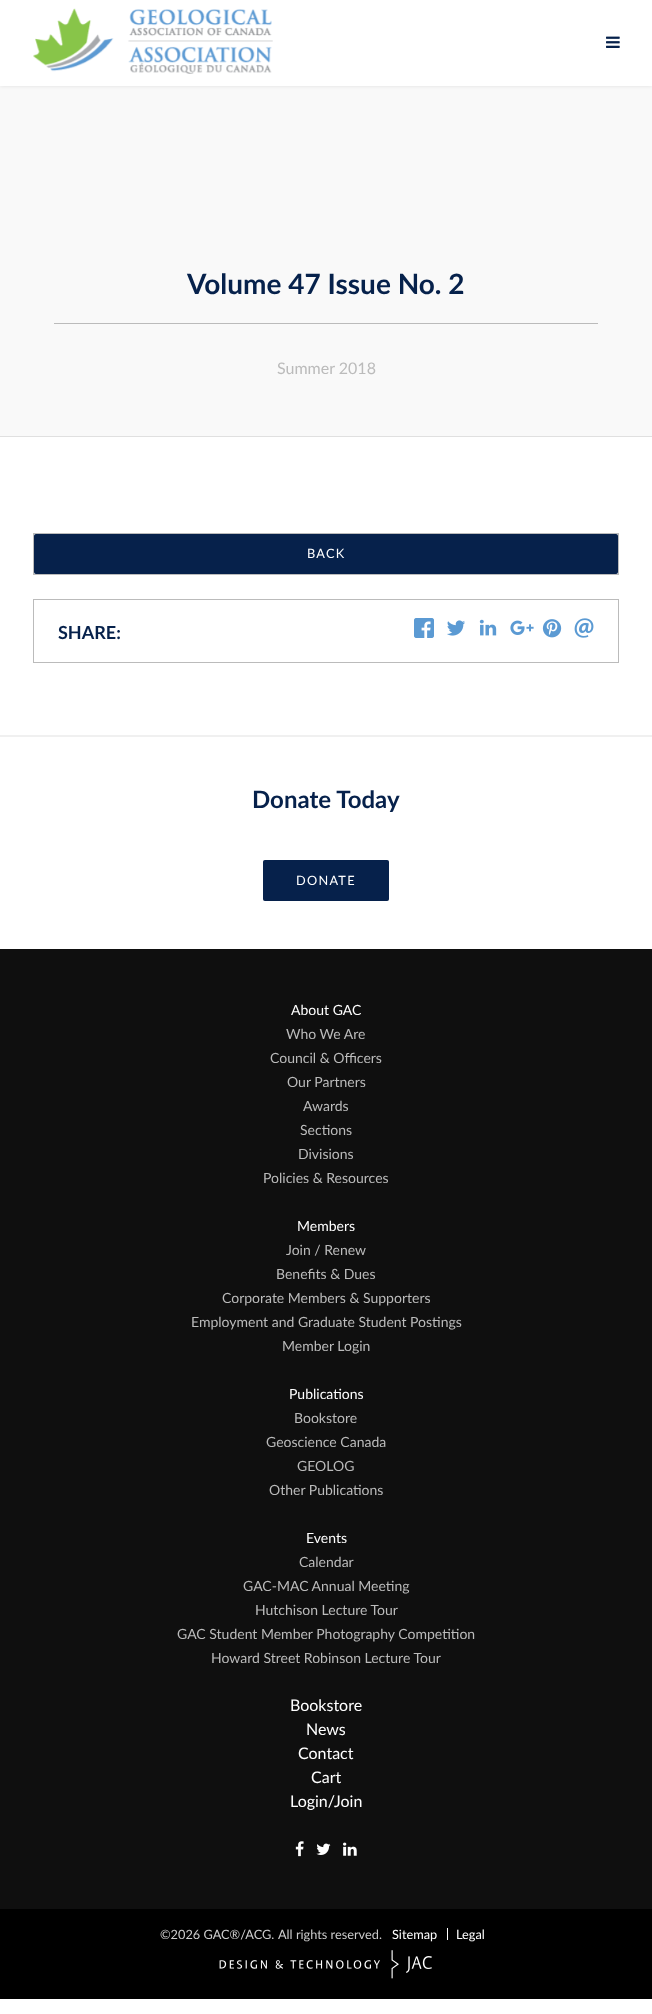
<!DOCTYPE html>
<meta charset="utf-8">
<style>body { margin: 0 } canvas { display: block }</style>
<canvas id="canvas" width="652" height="2014"></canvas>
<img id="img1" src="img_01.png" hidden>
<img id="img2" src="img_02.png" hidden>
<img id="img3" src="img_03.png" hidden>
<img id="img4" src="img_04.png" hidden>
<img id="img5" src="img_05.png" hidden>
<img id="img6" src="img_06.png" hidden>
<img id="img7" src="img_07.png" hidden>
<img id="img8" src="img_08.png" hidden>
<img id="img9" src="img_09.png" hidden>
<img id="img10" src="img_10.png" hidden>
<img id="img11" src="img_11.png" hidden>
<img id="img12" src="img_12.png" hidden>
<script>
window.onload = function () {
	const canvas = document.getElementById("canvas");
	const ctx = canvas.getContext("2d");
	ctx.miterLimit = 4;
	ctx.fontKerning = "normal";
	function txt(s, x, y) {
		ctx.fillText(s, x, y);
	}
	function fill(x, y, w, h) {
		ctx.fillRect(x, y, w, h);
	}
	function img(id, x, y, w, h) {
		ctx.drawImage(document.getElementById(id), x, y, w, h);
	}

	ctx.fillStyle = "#FFFFFF";
	fill(0, 0, 652, 2014);
	ctx.fillStyle = "#F9F9F9";
	fill(0, 86, 652, 350);
	ctx.fillStyle = "rgba(0, 0, 0, 0.1)";
	ctx.filter = "blur(2px)";
	ctx.beginPath();
	ctx.rect(0, 0, 652, 86);
	ctx.fill();
	ctx.filter = "none";
	ctx.fillStyle = "#FFFFFF";
	fill(0, 0, 652, 86);
	img("img1", 33, 8, 240, 66);
	img("img2", 606, 36, 14, 12);
	ctx.fillStyle = "#E0E0E0";
	fill(0, 436, 652, 1);
	ctx.fillStyle = "#BBBBBB";
	fill(54, 323, 544, 1);
	ctx.strokeStyle = "#BBBBBB";
	ctx.strokeRect(33.5, 533.5, 585, 41);
	ctx.fillStyle = "#06214B";
	ctx.beginPath();
	ctx.roundRect(34.5, 534.5, 583, 39, 1);
	ctx.fill();
	ctx.strokeStyle = "#06214B";
	ctx.stroke();
	ctx.strokeStyle = "#BBBBBB";
	ctx.strokeRect(33.5, 599.5, 585, 63);
	img("img3", 414, 618, 20, 20);
	img("img4", 447, 620, 18, 16);
	img("img5", 479, 619, 18, 17);
	img("img6", 510, 620, 24, 15);
	img("img7", 542, 619, 20, 19);
	img("img8", 574, 618, 20, 20);
	ctx.fillStyle = "#F0F0F0";
	fill(0, 735, 652, 2);
	ctx.fillStyle = "#06214B";
	ctx.beginPath();
	ctx.roundRect(263.5, 860.5, 125, 40, 1);
	ctx.fill();
	ctx.strokeStyle = "#06214B";
	ctx.stroke();
	ctx.fillStyle = "#0F0F0F";
	fill(0, 949, 652, 960);
	img("img9", 295, 1841, 9, 16);
	img("img10", 316, 1843, 15, 12);
	img("img11", 343, 1842, 14, 14);
	ctx.fillStyle = "#000000";
	fill(0, 1909, 652, 90);
	ctx.fillStyle = "#FFFFFF";
	fill(447, 1928, 1, 12);
	img("img12", 219, 1950, 213, 29);
	ctx.font = "bold 28px Lato";
	ctx.fillStyle = "#06214B";
	txt("Volume 47 Issue No. 2", 187, 294);
	ctx.font = "16px Lato";
	ctx.fillStyle = "#BBBBBB";
	txt("Summer 2018", 277, 374);
	ctx.letterSpacing = "1.25px";
	ctx.font = "12.75px Lato";
	ctx.fillStyle = "#FFFFFF";
	txt("BACK", 307, 558);
	ctx.letterSpacing = "0px";
	ctx.font = "bold 18px Lato";
	ctx.fillStyle = "#06214B";
	txt("SHARE:", 58, 639);
	ctx.font = "bold 24px Lato";
	txt("Donate Today", 252, 808);
	ctx.letterSpacing = "1.25px";
	ctx.font = "12.75px Lato";
	ctx.fillStyle = "#FFFFFF";
	txt("DONATE", 296, 885);
	ctx.letterSpacing = "0px";
	ctx.font = "14px Lato";
	txt("About GAC", 291, 1015);
	ctx.fillStyle = "#BBBBBB";
	txt("Who We Are", 286, 1039);
	txt("Council & Officers", 270, 1063);
	txt("Our Partners", 287, 1087);
	txt("Awards", 303, 1111);
	txt("Sections", 300, 1135);
	txt("Divisions", 298, 1159);
	txt("Policies & Resources", 263, 1183);
	ctx.fillStyle = "#FFFFFF";
	txt("Members", 297, 1231);
	ctx.fillStyle = "#BBBBBB";
	txt("Join / Renew", 286, 1255);
	txt("Benefits & Dues", 276, 1279);
	txt("Corporate Members & Supporters", 222, 1303);
	txt("Employment and Graduate Student Postings", 191, 1327);
	txt("Member Login", 282, 1351);
	ctx.fillStyle = "#FFFFFF";
	txt("Publications", 289, 1399);
	ctx.fillStyle = "#BBBBBB";
	txt("Bookstore", 294, 1423);
	txt("Geoscience Canada", 266, 1447);
	txt("GEOLOG", 297, 1471);
	txt("Other Publications", 269, 1495);
	ctx.fillStyle = "#FFFFFF";
	txt("Events", 306, 1543);
	ctx.fillStyle = "#BBBBBB";
	txt("Calendar", 299, 1567);
	txt("GAC-MAC Annual Meeting", 243, 1591);
	txt("Hutchison Lecture Tour", 255, 1615);
	txt("GAC Student Member Photography Competition", 177, 1639);
	txt("Howard Street Robinson Lecture Tour", 211, 1663);
	ctx.font = "16px Lato";
	ctx.fillStyle = "#FFFFFF";
	txt("Bookstore", 290, 1711);
	txt("News", 306, 1735);
	txt("Contact", 298, 1759);
	txt("Cart", 311, 1783);
	txt("Login/Join", 290, 1807);
	ctx.font = "12.75px Lato";
	ctx.fillStyle = "#CCCCCC";
	txt("©2026 GAC®/ACG.", 160, 1939);
	txt("All rights reserved.", 278, 1939);
	ctx.fillStyle = "#FFFFFF";
	txt("Sitemap", 392, 1939);
	txt("Legal", 456, 1939);
};
</script>
